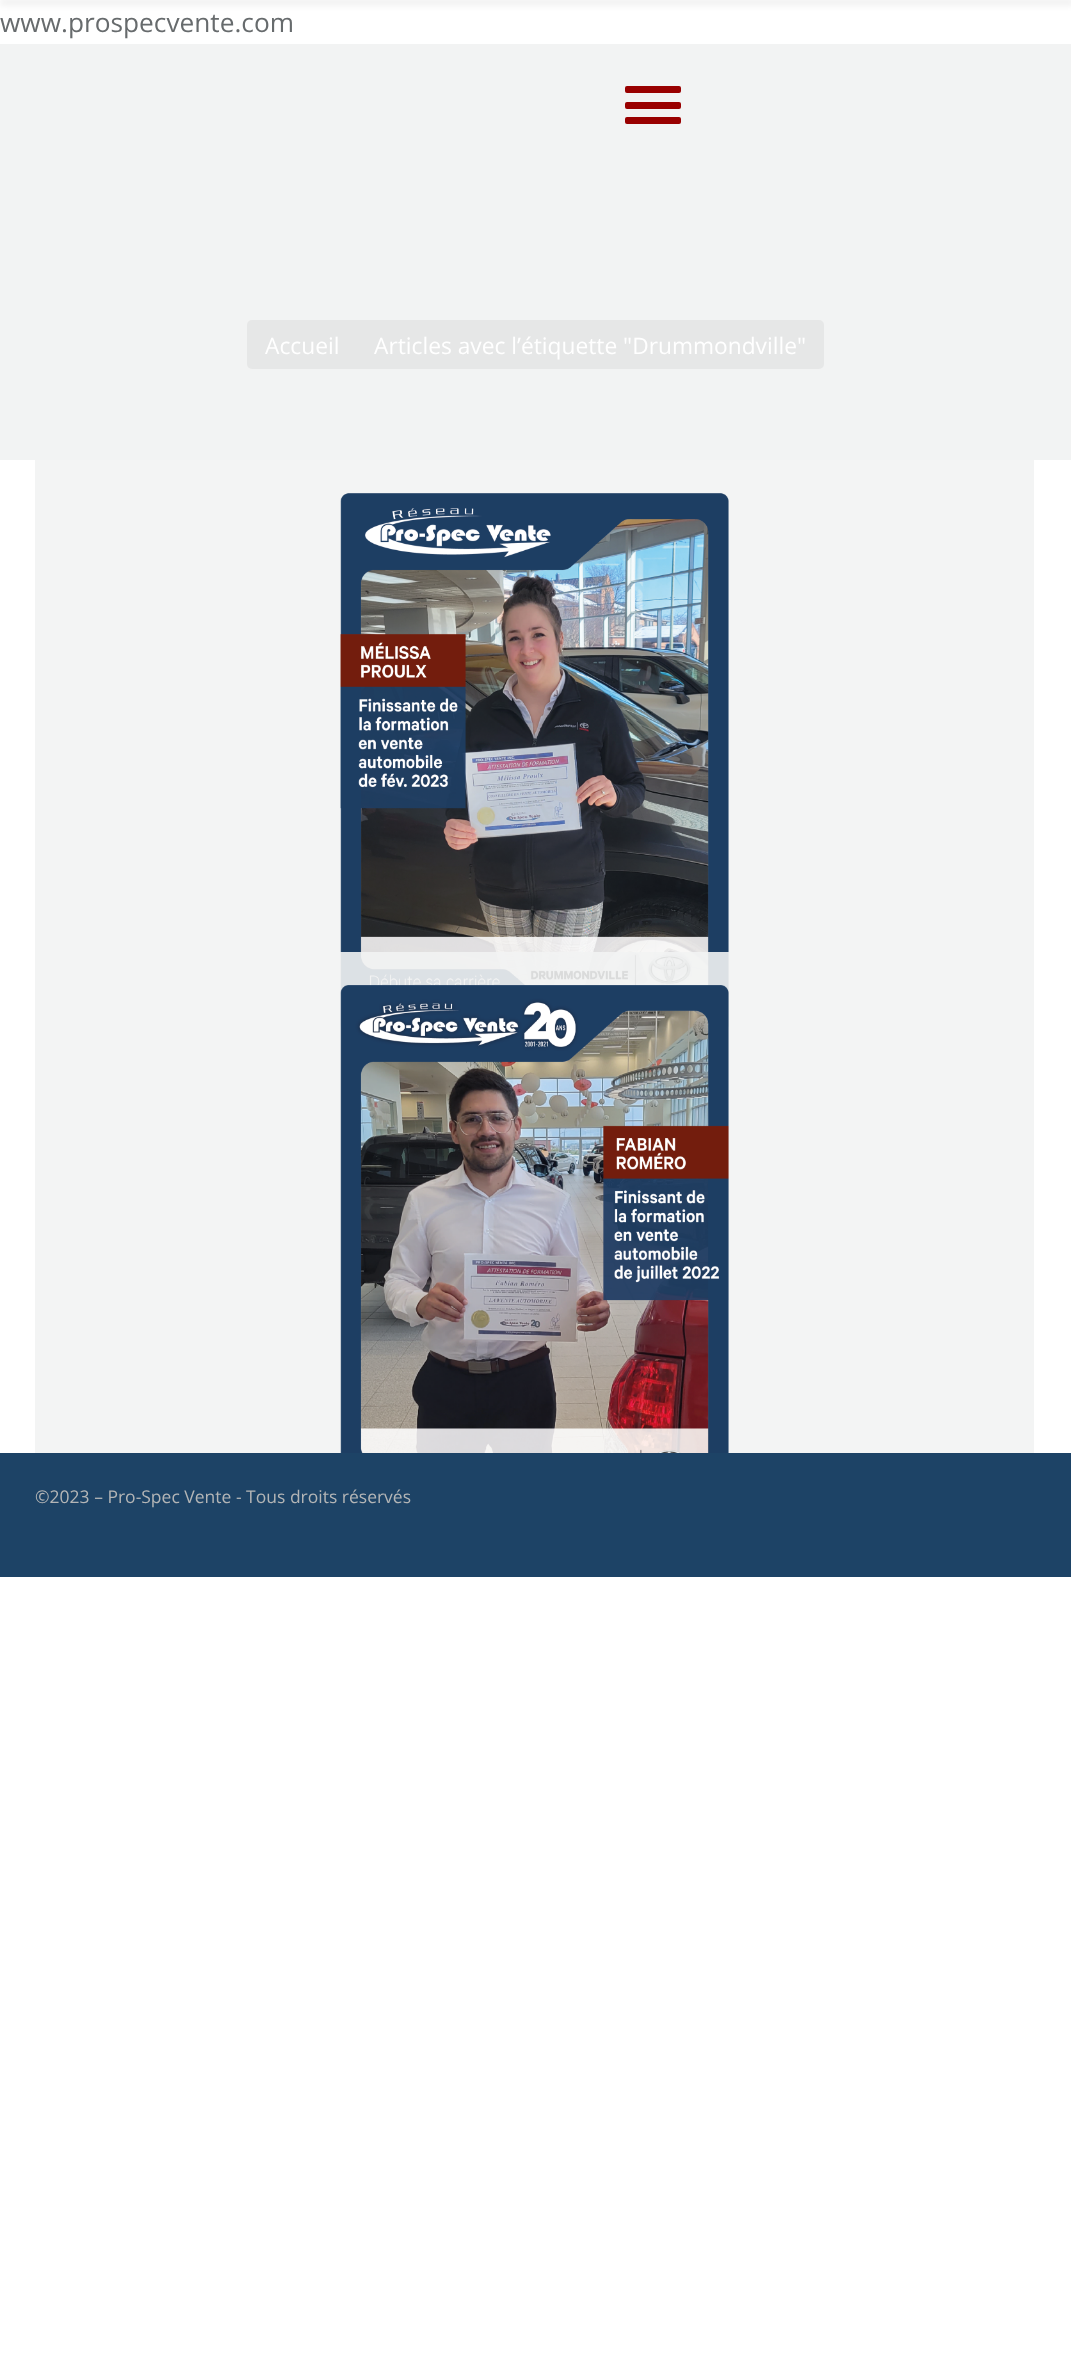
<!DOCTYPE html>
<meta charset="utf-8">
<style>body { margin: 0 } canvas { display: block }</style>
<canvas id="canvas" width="1071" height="2380"></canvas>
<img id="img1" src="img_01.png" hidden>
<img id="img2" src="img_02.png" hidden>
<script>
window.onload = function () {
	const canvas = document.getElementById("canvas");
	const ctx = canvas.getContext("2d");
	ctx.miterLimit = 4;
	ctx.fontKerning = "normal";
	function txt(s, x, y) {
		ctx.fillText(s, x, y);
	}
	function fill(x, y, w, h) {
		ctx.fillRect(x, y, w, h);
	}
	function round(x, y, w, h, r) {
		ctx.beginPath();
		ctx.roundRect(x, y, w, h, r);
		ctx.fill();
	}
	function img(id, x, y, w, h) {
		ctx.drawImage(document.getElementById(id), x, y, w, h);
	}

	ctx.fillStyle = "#FFFFFF";
	fill(0, 0, 1071, 2380);
	ctx.fillStyle = "#F3F4F4";
	fill(35, 460, 999, 993);
	ctx.fillStyle = "rgba(0, 0, 0, 0.1)";
	ctx.filter = "blur(3.5px)";
	ctx.beginPath();
	ctx.rect(0, 0, 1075, 4);
	ctx.fill();
	ctx.filter = "none";
	ctx.fillStyle = "#F2F3F3";
	fill(0, 44, 1071, 416);
	ctx.fillStyle = "#990000";
	round(625, 86, 56, 7, 2);
	round(625, 102, 56, 7, 2);
	round(625, 117, 56, 7, 2);
	ctx.fillStyle = "#E6E7E7";
	round(247, 320, 577, 49, 5);
	img("img1", 340, 493, 389, 536);
	ctx.fillStyle = "rgba(242, 243, 243, 0.9)";
	fill(340, 952, 389, 77);
	img("img2", 340, 985, 389, 468);
	ctx.fillStyle = "#1D4366";
	fill(0, 1453, 1071, 124);
	ctx.font = "26.25px Open Sans";
	ctx.fillStyle = "#676B6D";
	txt("www.prospecvente.com", 0, 32);
	ctx.font = "22.75px Open Sans";
	ctx.fillStyle = "#FFFFFF";
	txt("Accueil", 265, 354);
	txt("Articles avec l’étiquette \"Drummondville\"", 374, 354);
	ctx.font = "17.5px Open Sans";
	ctx.fillStyle = "#B3B5B6";
	txt("©2023 – Pro-Spec Vente - Tous droits réservés", 35, 1503);
};
</script>
